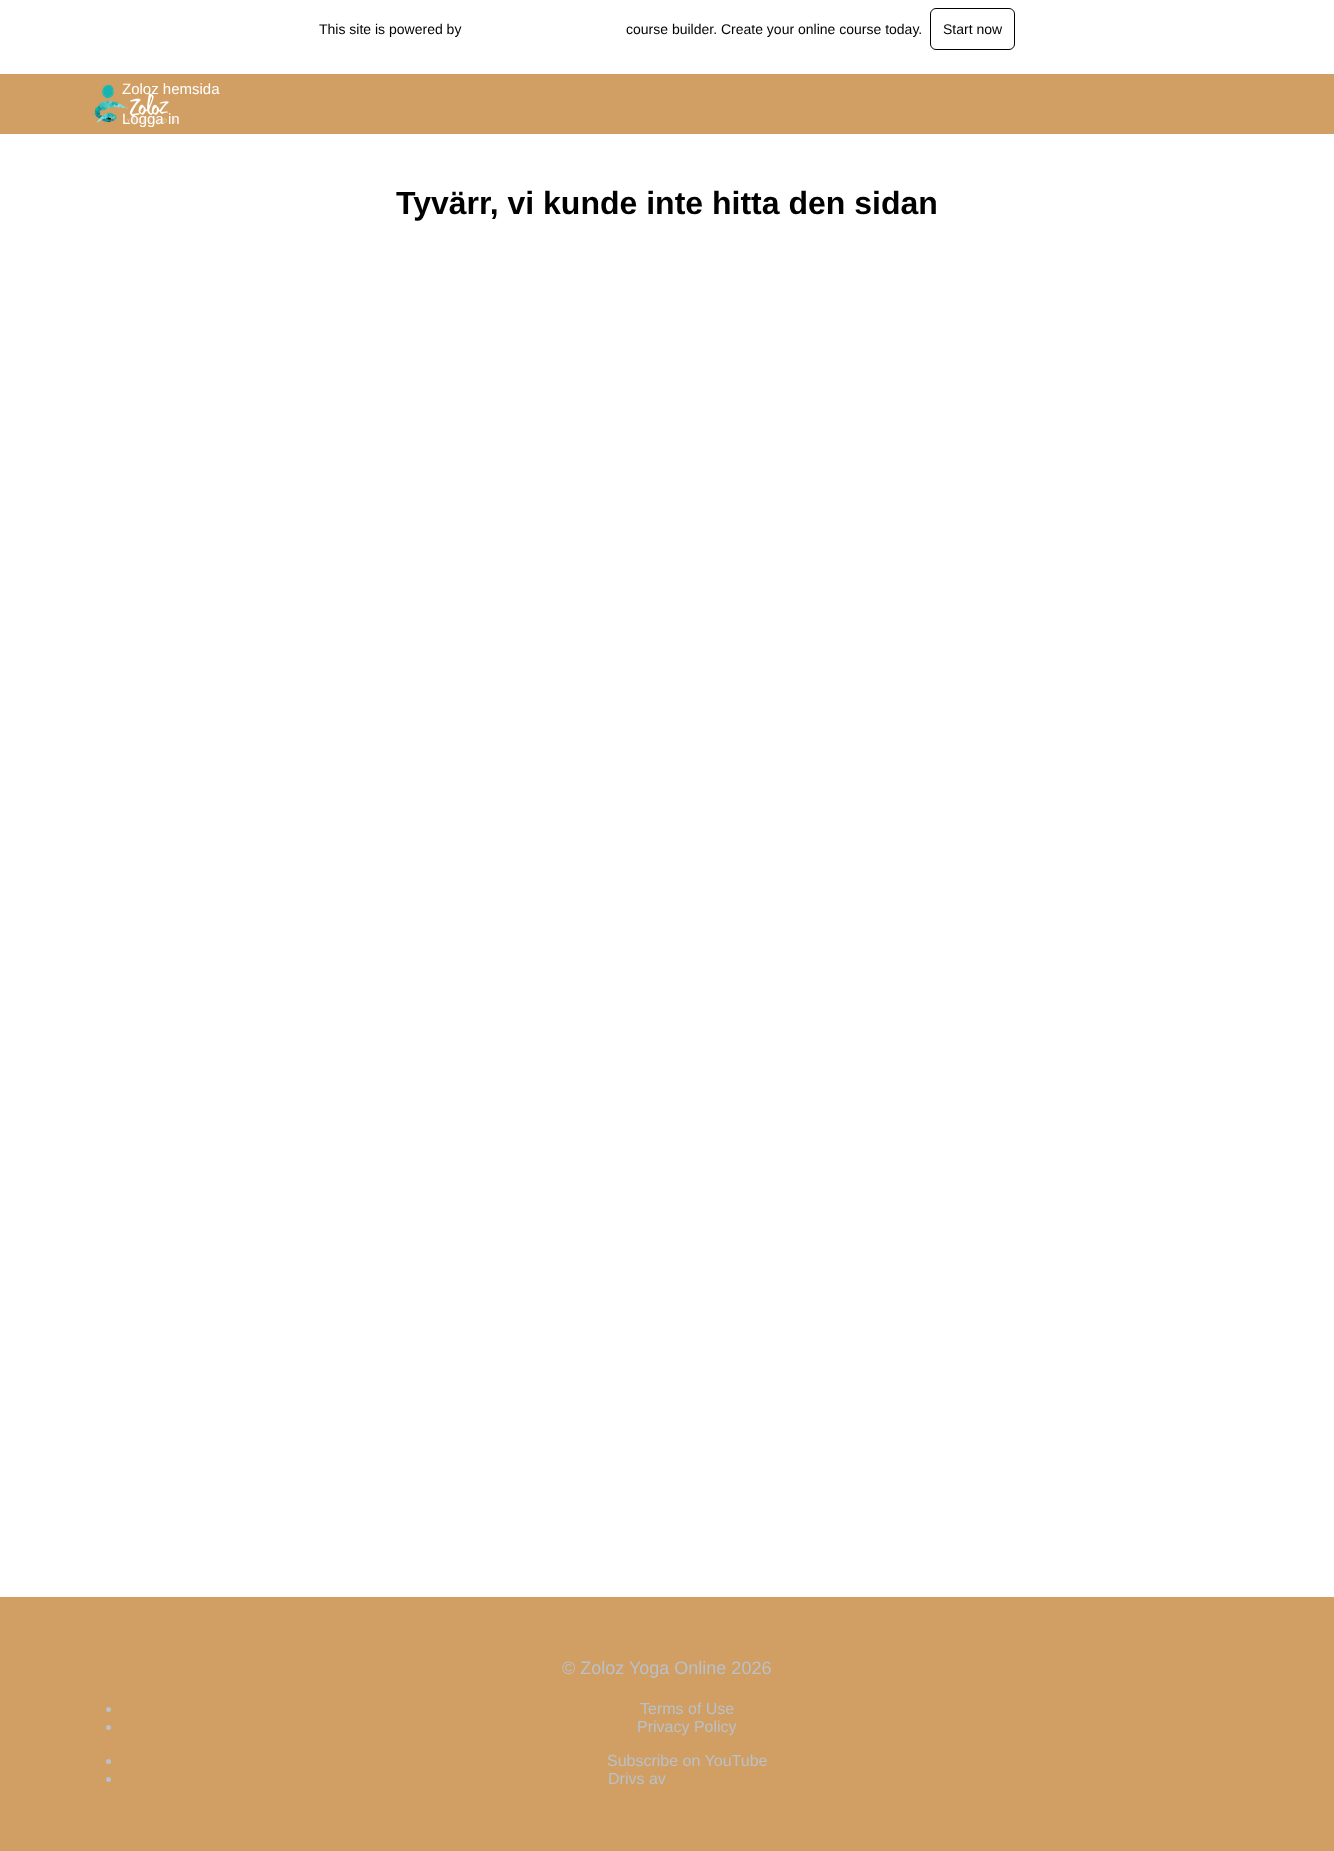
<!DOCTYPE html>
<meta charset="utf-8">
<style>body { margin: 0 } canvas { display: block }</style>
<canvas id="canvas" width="1334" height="1851"></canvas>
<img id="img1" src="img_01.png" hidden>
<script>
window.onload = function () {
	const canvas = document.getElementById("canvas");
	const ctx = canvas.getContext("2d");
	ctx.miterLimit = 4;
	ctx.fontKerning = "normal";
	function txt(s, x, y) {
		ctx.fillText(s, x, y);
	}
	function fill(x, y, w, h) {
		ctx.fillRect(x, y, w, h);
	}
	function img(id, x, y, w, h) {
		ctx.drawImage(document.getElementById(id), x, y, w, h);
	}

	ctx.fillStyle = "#FFFFFF";
	fill(0, 0, 1334, 1851);
	ctx.beginPath();
	ctx.roundRect(930.5, 8.5, 84, 41, 5.5);
	ctx.strokeStyle = "#000000";
	ctx.stroke();
	ctx.fillStyle = "#D19F64";
	fill(0, 74, 1334, 60);
	ctx.fillStyle = "#000000";
	ctx.beginPath();
	ctx.arc(108.5, 119.5, 2.5, 0, Math.PI * 2);
	ctx.fill();
	ctx.fillStyle = "#D19F64";
	fill(0, 1597, 1334, 254);
	ctx.fillStyle = "#BAC1C7";
	ctx.beginPath();
	ctx.arc(108.5, 1709.5, 2.5, 0, Math.PI * 2);
	ctx.fill();
	ctx.beginPath();
	ctx.arc(108.5, 1727.5, 2.5, 0, Math.PI * 2);
	ctx.fill();
	ctx.beginPath();
	ctx.arc(108.5, 1761.5, 2.5, 0, Math.PI * 2);
	ctx.fill();
	ctx.beginPath();
	ctx.arc(108.5, 1779.5, 2.5, 0, Math.PI * 2);
	ctx.fill();
	ctx.font = "14px Liberation Sans";
	ctx.fillStyle = "#000000";
	txt("This site is powered by", 319, 34);
	txt("course builder. Create your online course today.", 626, 34);
	txt("Start now", 943, 34);
	ctx.font = "15px Liberation Sans";
	ctx.fillStyle = "#FFFFFF";
	txt("Zoloz hemsida", 122, 94);
	txt("Logga in", 122, 124);
	img("img1", 94, 84, 82, 40);
	ctx.font = "bold 32px Liberation Sans";
	ctx.fillStyle = "#000000";
	txt("Tyvärr, vi kunde inte hitta den sidan", 396, 214);
	ctx.font = "18px Liberation Sans";
	ctx.fillStyle = "#BAC1C7";
	txt("© Zoloz Yoga Online 2026", 562, 1674);
	ctx.font = "16px Liberation Sans";
	txt("Terms of Use", 640, 1714);
	txt("Privacy Policy", 637, 1732);
	txt("Subscribe on YouTube", 607, 1766);
	txt("Drivs av", 608, 1784);
};
</script>
